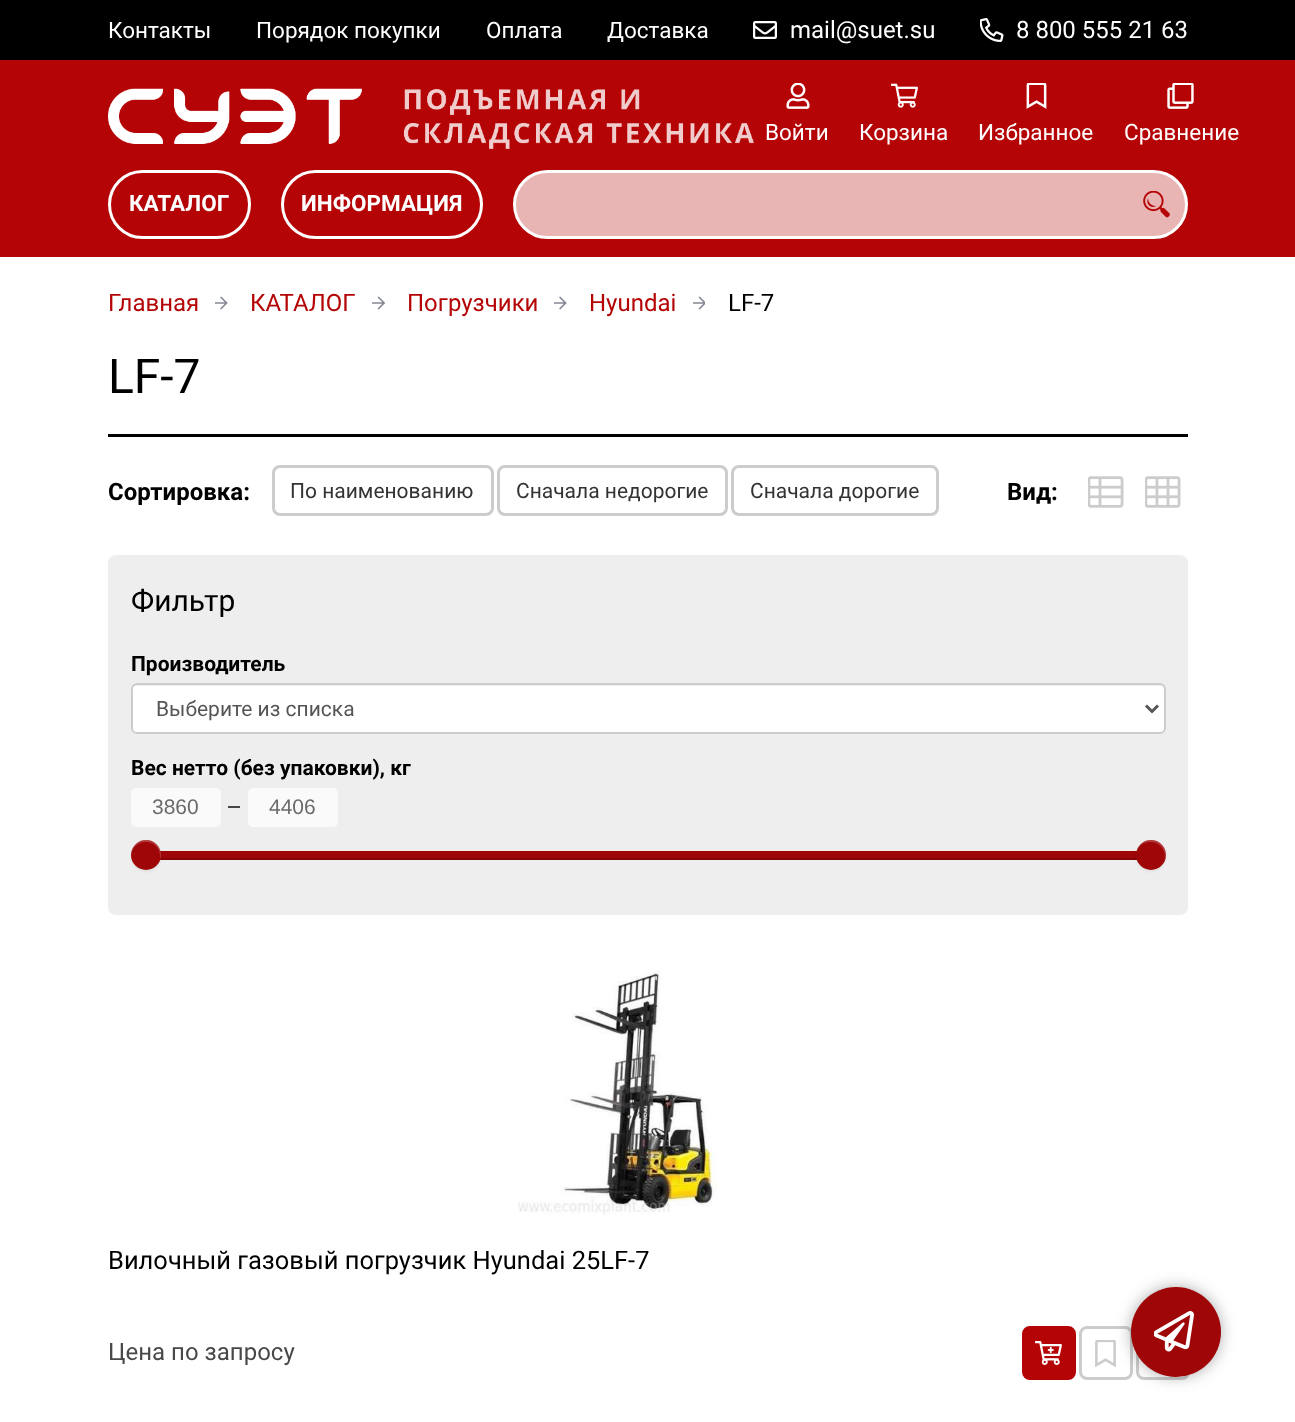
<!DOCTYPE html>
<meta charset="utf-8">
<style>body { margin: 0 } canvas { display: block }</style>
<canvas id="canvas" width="1295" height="1422"></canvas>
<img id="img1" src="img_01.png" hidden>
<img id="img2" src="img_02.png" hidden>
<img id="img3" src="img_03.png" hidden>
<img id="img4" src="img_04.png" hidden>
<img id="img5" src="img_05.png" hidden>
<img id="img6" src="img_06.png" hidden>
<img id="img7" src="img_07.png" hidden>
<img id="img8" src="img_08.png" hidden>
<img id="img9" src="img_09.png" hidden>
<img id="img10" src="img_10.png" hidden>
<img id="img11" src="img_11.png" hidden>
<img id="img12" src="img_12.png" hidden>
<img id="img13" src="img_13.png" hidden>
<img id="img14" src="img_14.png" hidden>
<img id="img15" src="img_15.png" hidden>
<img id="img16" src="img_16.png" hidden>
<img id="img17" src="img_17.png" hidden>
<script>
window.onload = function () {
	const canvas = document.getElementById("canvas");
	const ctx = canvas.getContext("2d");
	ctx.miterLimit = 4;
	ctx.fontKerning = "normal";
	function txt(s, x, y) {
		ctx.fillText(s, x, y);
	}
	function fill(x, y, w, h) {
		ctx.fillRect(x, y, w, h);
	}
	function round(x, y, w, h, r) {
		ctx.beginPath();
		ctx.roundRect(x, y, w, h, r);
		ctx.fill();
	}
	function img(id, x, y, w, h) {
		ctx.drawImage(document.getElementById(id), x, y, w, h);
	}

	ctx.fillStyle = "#FFFFFF";
	fill(0, 0, 1295, 1422);
	ctx.fillStyle = "#000000";
	fill(0, 0, 1295, 60);
	img("img1", 753, 21, 24, 18);
	img("img2", 980, 18, 24, 24);
	ctx.fillStyle = "#B50405";
	fill(0, 60, 1295, 197);
	img("img3", 108, 88, 646, 61);
	img("img4", 786, 83, 24, 26);
	img("img5", 891, 83, 27, 25);
	img("img6", 1026, 83, 21, 26);
	img("img7", 1167, 83, 27, 26);
	ctx.beginPath();
	ctx.roundRect(109.5, 171.5, 140, 66, 33);
	ctx.strokeStyle = "#FFFFFF";
	ctx.lineWidth = 3;
	ctx.stroke();
	ctx.beginPath();
	ctx.roundRect(282.5, 171.5, 199, 66, 33);
	ctx.stroke();
	ctx.fillStyle = "#E9B4B4";
	ctx.beginPath();
	ctx.roundRect(514.5, 171.5, 672, 66, 33);
	ctx.fill();
	ctx.stroke();
	img("img8", 1143, 191, 27, 27);
	img("img9", 215, 296, 13, 14);
	img("img10", 372, 296, 13, 14);
	img("img9", 554, 296, 13, 14);
	img("img11", 693, 296, 12, 14);
	ctx.fillStyle = "#000000";
	fill(108, 434, 1080, 3);
	ctx.beginPath();
	ctx.roundRect(273.5, 466.5, 219, 48, 6.5);
	ctx.strokeStyle = "#CCCCCC";
	ctx.stroke();
	ctx.beginPath();
	ctx.roundRect(498.5, 466.5, 228, 48, 6.5);
	ctx.stroke();
	ctx.beginPath();
	ctx.roundRect(732.5, 466.5, 205, 48, 6.5);
	ctx.stroke();
	img("img12", 1088, 476, 36, 32);
	img("img13", 1145, 476, 36, 32);
	ctx.fillStyle = "#EEEEEE";
	round(108, 555, 1080, 360, 8);
	ctx.fillStyle = "#FFFFFF";
	round(131, 683, 1035, 51, 6);
	ctx.fillStyle = "#ECECEC";
	ctx.beginPath();
	ctx.moveTo(136, 686);
	ctx.lineTo(1160, 686);
	ctx.bezierCurveTo(1162, 686, 1164, 688, 1164, 690);
	ctx.bezierCurveTo(1164, 687, 1162, 684, 1159, 684);
	ctx.lineTo(137, 684);
	ctx.bezierCurveTo(134, 684, 132, 687, 132, 690);
	ctx.bezierCurveTo(132, 688, 134, 686, 136, 686);
	ctx.closePath();
	ctx.fill();
	ctx.beginPath();
	ctx.roundRect(132, 684, 1033, 49, 5);
	ctx.lineWidth = 2;
	ctx.stroke();
	ctx.beginPath();
	ctx.moveTo(1146, 705.5);
	ctx.lineTo(1152, 711.5);
	ctx.lineTo(1158, 705.5);
	ctx.strokeStyle = "#555555";
	ctx.lineWidth = 3;
	ctx.stroke();
	ctx.fillStyle = "#FAFAFA";
	round(131, 788, 90, 39, 5);
	ctx.fillStyle = "#474747";
	fill(228, 806, 12, 2);
	ctx.fillStyle = "#FAFAFA";
	round(248, 788, 90, 39, 5);
	ctx.fillStyle = "#9E0607";
	fill(160, 851, 977, 9);
	ctx.fillStyle = "rgba(0, 0, 0, 0.15)";
	ctx.beginPath();
	ctx.moveTo(146, 856);
	ctx.bezierCurveTo(146, 858, 148, 860, 150, 860);
	ctx.lineTo(1146, 860);
	ctx.bezierCurveTo(1150, 860, 1152, 856, 1151, 854);
	ctx.bezierCurveTo(1151, 855, 1150, 857, 1148, 858);
	ctx.lineTo(150, 858);
	ctx.bezierCurveTo(148, 858, 147, 857, 146, 856);
	ctx.closePath();
	ctx.fill();
	ctx.fillStyle = "rgba(0, 0, 0, 0.05)";
	ctx.filter = "blur(1.5px)";
	ctx.beginPath();
	ctx.roundRect(131, 842, 30, 30, 15);
	ctx.fill();
	ctx.filter = "none";
	ctx.fillStyle = "#9E0607";
	ctx.beginPath();
	ctx.arc(146, 855, 15, 0, Math.PI * 2);
	ctx.fill();
	ctx.fillStyle = "rgba(255, 255, 255, 0.2)";
	ctx.beginPath();
	ctx.moveTo(146, 842);
	ctx.bezierCurveTo(157, 842, 161.5, 852.5, 160, 861);
	ctx.bezierCurveTo(166.5, 844.5, 144, 831.5, 133.5, 846.5);
	ctx.bezierCurveTo(131.5, 849.5, 131, 852.5, 131, 856);
	ctx.bezierCurveTo(131.5, 849, 136.5, 842, 146, 842);
	ctx.closePath();
	ctx.fill();
	ctx.fillStyle = "rgba(0, 0, 0, 0.05)";
	ctx.filter = "blur(1.5px)";
	ctx.beginPath();
	ctx.roundRect(1136, 842, 30, 30, 15);
	ctx.fill();
	ctx.filter = "none";
	ctx.fillStyle = "#9E0607";
	ctx.beginPath();
	ctx.arc(1151, 855, 15, 0, Math.PI * 2);
	ctx.fill();
	ctx.fillStyle = "rgba(255, 255, 255, 0.2)";
	ctx.beginPath();
	ctx.moveTo(1150, 842);
	ctx.bezierCurveTo(1162.5, 842, 1167, 853.5, 1164, 862);
	ctx.bezierCurveTo(1172, 848, 1153.5, 832.5, 1141, 844);
	ctx.bezierCurveTo(1138, 846.5, 1136.5, 850, 1136, 854);
	ctx.bezierCurveTo(1137, 847.5, 1142, 842, 1150, 842);
	ctx.closePath();
	ctx.fill();
	img("img14", 518, 971, 199, 245);
	ctx.fillStyle = "#B50405";
	round(1023, 1328, 51, 51, 6);
	img("img15", 1035, 1341, 27, 24);
	ctx.beginPath();
	ctx.roundRect(1023.5, 1327.5, 51, 51, 6.5);
	ctx.strokeStyle = "#B50405";
	ctx.stroke();
	img("img16", 1095, 1340, 21, 27);
	ctx.beginPath();
	ctx.roundRect(1080.5, 1327.5, 51, 51, 6.5);
	ctx.strokeStyle = "#CCCCCC";
	ctx.stroke();
	ctx.beginPath();
	ctx.roundRect(1137.5, 1327.5, 51, 51, 6.5);
	ctx.stroke();
	ctx.fillStyle = "rgba(50, 50, 50, 0.4)";
	ctx.filter = "blur(7.5px)";
	ctx.beginPath();
	ctx.roundRect(1131, 1287, 90, 90, 45);
	ctx.fill();
	ctx.filter = "none";
	ctx.fillStyle = "#9E0607";
	ctx.beginPath();
	ctx.arc(1176, 1332, 45, 0, Math.PI * 2);
	ctx.fill();
	img("img17", 1154, 1311, 40, 41);
	ctx.font = "22.5px Roboto";
	ctx.fillStyle = "#FFFFFF";
	txt("Контакты", 108, 38);
	txt("Порядок покупки", 256, 38);
	txt("Оплата", 486, 38);
	txt("Доставка", 607, 38);
	ctx.font = "24px Roboto";
	txt("mail@suet.su", 790, 38);
	txt("8 800 555 21 63", 1016, 38);
	ctx.font = "22.5px Roboto";
	txt("Войти", 765, 140);
	txt("Корзина", 859, 140);
	txt("Избранное", 978, 140);
	txt("Сравнение", 1124, 140);
	ctx.font = "bold 22.5px Roboto";
	txt("КАТАЛОГ", 129, 211);
	txt("ИНФОРМАЦИЯ", 301, 211);
	ctx.font = "24px Roboto";
	ctx.fillStyle = "#B50405";
	txt("Главная", 108, 311);
	txt("КАТАЛОГ", 250, 311);
	txt("Погрузчики", 407, 311);
	txt("Hyundai", 589, 311);
	ctx.fillStyle = "#000000";
	txt("LF-7", 728, 311);
	ctx.font = "48px Roboto";
	txt("LF-7", 108, 393);
	ctx.font = "bold 24px Roboto";
	txt("Сортировка:", 108, 500);
	ctx.font = "21px Roboto";
	ctx.fillStyle = "#333333";
	txt("По наименованию", 290, 498);
	txt("Сначала недорогие", 516, 498);
	txt("Сначала дорогие", 750, 498);
	ctx.font = "bold 24px Roboto";
	ctx.fillStyle = "#000000";
	txt("Вид:", 1007, 500);
	ctx.font = "30px Roboto";
	txt("Фильтр", 131, 611);
	ctx.font = "bold 21px Roboto";
	txt("Производитель", 131, 671);
	ctx.font = "21px Roboto";
	ctx.fillStyle = "#555555";
	txt("Выберите из списка", 156, 716);
	ctx.font = "bold 21px Roboto";
	ctx.fillStyle = "#000000";
	txt("Вес нетто (без упаковки), кг", 131, 775);
	ctx.font = "21px Liberation Sans";
	ctx.fillStyle = "#6B6B6B";
	txt("3860", 152, 814);
	txt("4406", 269, 814);
	ctx.font = "25.5px Roboto";
	ctx.fillStyle = "#000000";
	txt("Вилочный газовый погрузчик Hyundai 25LF-7", 108, 1269);
	ctx.font = "24px Roboto";
	ctx.fillStyle = "#484848";
	txt("Цена по запросу", 108, 1360);
};
</script>
